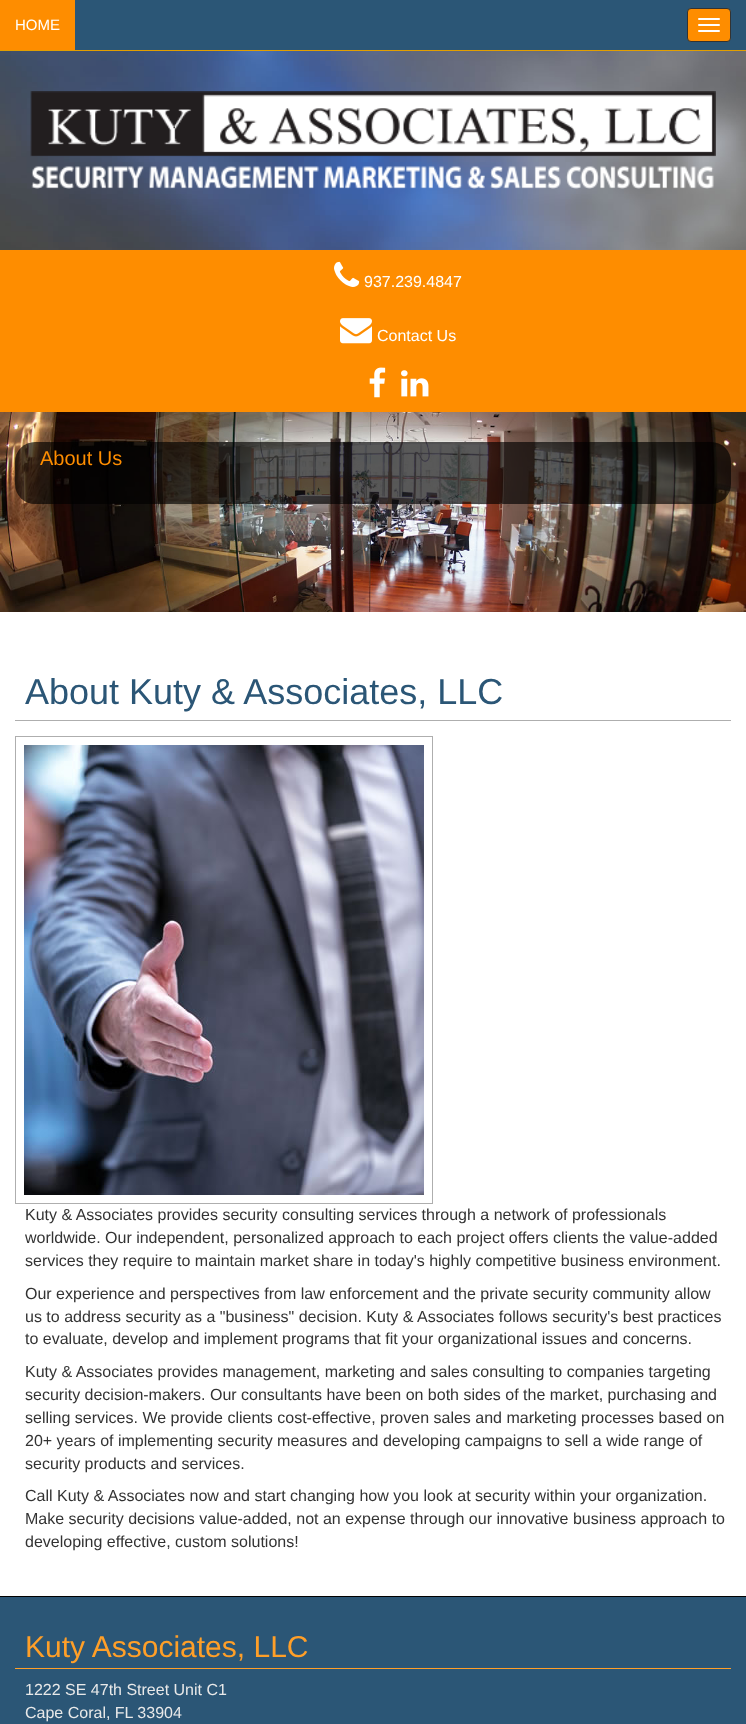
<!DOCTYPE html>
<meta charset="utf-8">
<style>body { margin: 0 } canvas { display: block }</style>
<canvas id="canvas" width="746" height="1724"></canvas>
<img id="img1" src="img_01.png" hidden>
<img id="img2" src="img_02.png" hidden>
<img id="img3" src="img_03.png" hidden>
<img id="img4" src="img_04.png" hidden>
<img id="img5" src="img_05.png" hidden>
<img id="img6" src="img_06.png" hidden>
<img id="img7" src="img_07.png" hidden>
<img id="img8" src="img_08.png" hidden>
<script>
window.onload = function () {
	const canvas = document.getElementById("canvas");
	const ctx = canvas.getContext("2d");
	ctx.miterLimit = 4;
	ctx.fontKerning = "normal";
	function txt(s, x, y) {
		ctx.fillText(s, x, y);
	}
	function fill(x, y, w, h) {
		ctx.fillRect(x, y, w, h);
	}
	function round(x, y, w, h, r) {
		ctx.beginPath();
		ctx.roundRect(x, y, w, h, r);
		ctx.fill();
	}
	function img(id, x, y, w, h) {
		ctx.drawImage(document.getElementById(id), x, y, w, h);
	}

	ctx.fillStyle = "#FFFFFF";
	fill(0, 0, 746, 1724);
	ctx.fillStyle = "#2B5676";
	fill(75, 0, 671, 50);
	ctx.fillStyle = "#E39F00";
	fill(0, 50, 746, 1);
	ctx.fillStyle = "#FE8D00";
	fill(0, 0, 75, 50);
	ctx.beginPath();
	ctx.roundRect(687.5, 8.5, 43, 33, 3.5);
	ctx.fill();
	ctx.strokeStyle = "#333333";
	ctx.stroke();
	ctx.fillStyle = "#FFFFFF";
	round(698, 18, 22, 2, 1);
	round(698, 24, 22, 2, 1);
	round(698, 30, 22, 2, 1);
	img("img1", 0, 51, 746, 199);
	img("img2", 30, 91, 686, 98);
	ctx.fillStyle = "#FE8D00";
	fill(0, 250, 746, 162);
	img("img3", 334, 261, 26, 26);
	img("img4", 340, 318, 32, 26);
	img("img5", 369, 367, 17, 31);
	img("img6", 401, 370, 28, 27);
	img("img7", 0, 412, 746, 200);
	ctx.fillStyle = "rgba(0, 0, 0, 0.65)";
	round(15, 442, 716, 62, 20);
	ctx.fillStyle = "#AEAEAE";
	fill(15, 720, 716, 1);
	ctx.strokeStyle = "#AEAEAE";
	ctx.strokeRect(15.5, 736.5, 417, 467);
	img("img8", 24, 745, 400, 450);
	ctx.fillStyle = "#2B5676";
	fill(0, 1597, 746, 127);
	ctx.fillStyle = "#000000";
	fill(0, 1596, 746, 1);
	ctx.fillStyle = "#FF9F28";
	fill(15, 1668, 716, 1);
	ctx.font = "15px Liberation Sans";
	ctx.fillStyle = "#FFFFFF";
	txt("HOME", 15, 30);
	ctx.font = "16px Liberation Sans";
	txt("937.239.4847", 364, 287);
	txt("Contact Us", 377, 341);
	ctx.font = "20px Liberation Sans";
	ctx.fillStyle = "#FE8D00";
	txt("About Us", 40, 465);
	ctx.font = "36px Liberation Sans";
	ctx.fillStyle = "#2B5676";
	txt("About Kuty & Associates, LLC", 25, 704);
	ctx.font = "16px Liberation Sans";
	ctx.fillStyle = "#333333";
	txt("Kuty & Associates provides security consulting services through a network of professionals", 25, 1220);
	txt("worldwide. Our independent, personalized approach to each project offers clients the value-added", 25, 1243);
	txt("services they require to maintain market share in today's highly competitive business environment.", 25, 1266);
	txt("Our experience and perspectives from law enforcement and the private security community allow", 25, 1299);
	txt("us to address security as a \"business\" decision. Kuty & Associates follows security's best practices", 25, 1322);
	txt("to evaluate, develop and implement programs that fit your organizational issues and concerns.", 25, 1344);
	txt("Kuty & Associates provides management, marketing and sales consulting to companies targeting", 25, 1377);
	txt("security decision-makers. Our consultants have been on both sides of the market, purchasing and", 25, 1400);
	txt("selling services. We provide clients cost-effective, proven sales and marketing processes based on", 25, 1423);
	txt("20+ years of implementing security measures and developing campaigns to sell a wide range of", 25, 1446);
	txt("security products and services.", 25, 1469);
	txt("Call Kuty & Associates now and start changing how you look at security within your organization.", 25, 1501);
	txt("Make security decisions value-added, not an expense through our innovative business approach to", 25, 1524);
	txt("developing effective, custom solutions!", 25, 1547);
	ctx.font = "30px Liberation Sans";
	ctx.fillStyle = "#FF9F28";
	txt("Kuty Associates, LLC", 25, 1657);
	ctx.font = "16px Liberation Sans";
	ctx.fillStyle = "#E9E9E9";
	txt("1222 SE 47th Street Unit C1", 25, 1695);
	txt("Cape Coral, FL 33904", 25, 1718);
};
</script>
